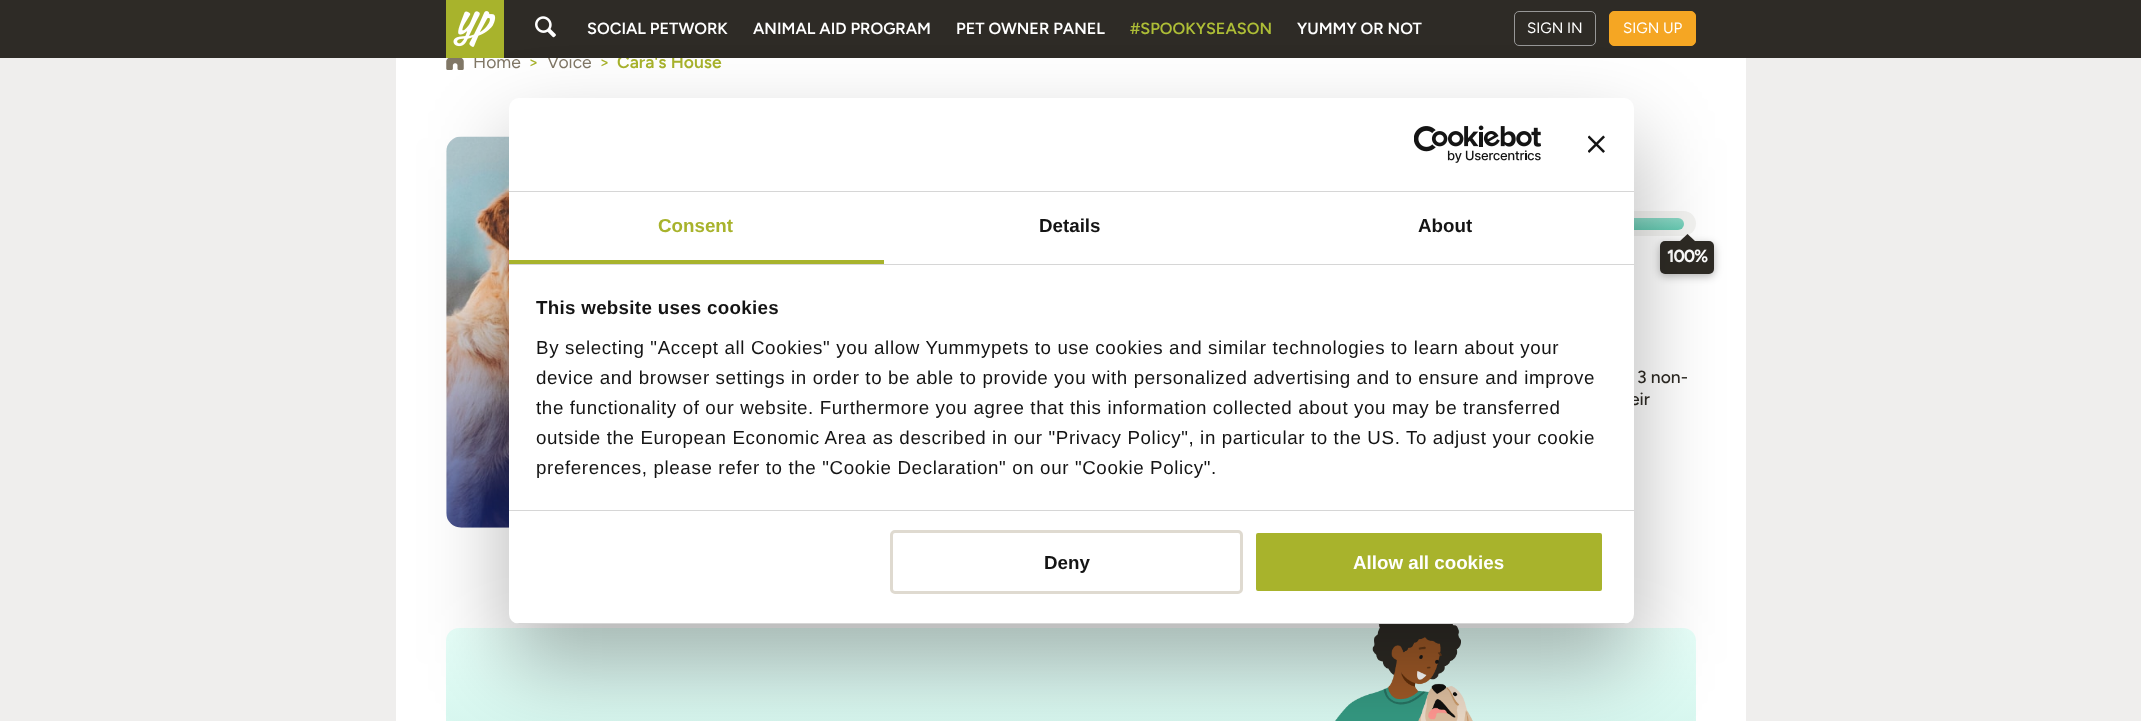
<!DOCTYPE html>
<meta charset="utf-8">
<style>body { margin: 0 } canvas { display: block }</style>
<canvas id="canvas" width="2141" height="721"></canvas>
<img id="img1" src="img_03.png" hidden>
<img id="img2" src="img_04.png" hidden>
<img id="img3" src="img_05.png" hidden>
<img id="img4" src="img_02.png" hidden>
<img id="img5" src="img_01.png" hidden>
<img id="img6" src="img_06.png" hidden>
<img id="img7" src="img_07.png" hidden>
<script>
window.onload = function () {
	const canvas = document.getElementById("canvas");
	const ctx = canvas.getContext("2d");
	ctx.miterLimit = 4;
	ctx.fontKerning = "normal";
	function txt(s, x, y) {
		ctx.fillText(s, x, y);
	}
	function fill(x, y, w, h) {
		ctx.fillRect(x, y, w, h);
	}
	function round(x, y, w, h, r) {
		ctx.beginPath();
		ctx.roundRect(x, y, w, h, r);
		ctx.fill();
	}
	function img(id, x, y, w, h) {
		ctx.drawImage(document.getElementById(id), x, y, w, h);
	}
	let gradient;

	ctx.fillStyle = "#EFEEED";
	fill(0, 0, 2141, 721);
	ctx.fillStyle = "#FFFFFF";
	fill(396, 58, 1350, 663);
	img("img1", 446, 58, 18, 12);
	img("img2", 446, 136, 63, 392);
	ctx.fillStyle = "#F3F3F1";
	round(1084, 211, 612, 25, 12.5);
	gradient = ctx.createLinearGradient(1387, 217, 1387, 230);
	gradient.addColorStop(0.01, "#8DD8C6");
	gradient.addColorStop(1, "#67CBB3");
	ctx.fillStyle = gradient;
	round(1090, 218, 594, 12, 6);
	ctx.fillStyle = "rgba(0, 0, 0, 0.3)";
	ctx.filter = "blur(4px)";
	ctx.beginPath();
	ctx.roundRect(1660, 244, 54, 32, 5);
	ctx.fill();
	ctx.filter = "none";
	ctx.fillStyle = "#2E2B25";
	round(1660, 241, 54, 33, 5);
	ctx.beginPath();
	ctx.moveTo(1695, 241);
	ctx.lineTo(1680, 241);
	ctx.lineTo(1687.5, 234);
	ctx.closePath();
	ctx.fill();
	gradient = ctx.createLinearGradient(1071, 627, 1071, 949);
	gradient.addColorStop(0, "#E7FFF9");
	gradient.addColorStop(1, "#B3E5D9");
	ctx.fillStyle = gradient;
	round(446, 628, 1250, 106, 13);
	img("img3", 1335, 624, 138, 97);
	ctx.font = "17.5px Figtree";
	ctx.fillStyle = "#807766";
	txt("Home", 473, 68);
	ctx.fillStyle = "#A8B32C";
	txt(">", 528, 68);
	ctx.fillStyle = "#807766";
	txt("Voice", 547, 68);
	ctx.fillStyle = "#A8B32C";
	txt(">", 599, 68);
	ctx.font = "600 17.5px Figtree";
	txt("Cara's House", 617, 68);
	ctx.fillStyle = "#2E2B26";
	fill(0, 0, 2141, 58);
	ctx.fillStyle = "#F5A623";
	ctx.beginPath();
	ctx.roundRect(1609.5, 11.5, 86, 34, 4.5);
	ctx.fill();
	ctx.strokeStyle = "#F5A623";
	ctx.stroke();
	ctx.font = "15px Figtree";
	ctx.fillStyle = "#FFFFFF";
	txt("SIGN UP", 1623, 33);
	ctx.beginPath();
	ctx.roundRect(1514.5, 11.5, 81, 34, 4.5);
	ctx.strokeStyle = "#979797";
	ctx.stroke();
	txt("SIGN IN", 1527, 33);
	img("img4", 535, 16, 21, 22);
	ctx.fillStyle = "#A8B32C";
	fill(446, 0, 58, 58);
	img("img5", 453, 11, 43, 36);
	ctx.font = "600 16.25px Figtree";
	ctx.fillStyle = "#FFFFFF";
	txt("YUMMY OR NOT", 1297, 34);
	ctx.fillStyle = "#ADBD36";
	txt("#SPOOKYSEASON", 1130, 34);
	ctx.fillStyle = "#FFFFFF";
	txt("PET OWNER PANEL", 956, 34);
	txt("ANIMAL AID PROGRAM", 753, 34);
	txt("SOCIAL PETWORK", 587, 34);
	ctx.letterSpacing = "-1px";
	ctx.font = "bold 17.5px Figtree";
	txt("100%", 1667, 262);
	ctx.letterSpacing = "0px";
	ctx.font = "500 17.5px Figtree";
	ctx.fillStyle = "#2E2B25";
	txt("3 non-", 1637, 383);
	txt("eir", 1630, 405);
	ctx.fillStyle = "rgba(0, 0, 0, 0.3)";
	ctx.filter = "blur(42.5px)";
	ctx.beginPath();
	ctx.roundRect(509, 138, 1125, 526, 10);
	ctx.fill();
	ctx.filter = "none";
	ctx.fillStyle = "#FFFFFF";
	round(509, 98, 1125, 526, 10);
	ctx.fillStyle = "#D6D6D6";
	fill(509, 191, 1125, 1);
	img("img6", 1414, 125, 127, 38);
	img("img7", 1588, 135, 17, 18);
	fill(509, 264, 1125, 1);
	ctx.fillStyle = "#A8B32C";
	fill(509, 260, 375, 4);
	ctx.font = "bold 18.75px Liberation Sans";
	txt("Consent", 658, 232);
	ctx.fillStyle = "#141414";
	txt("Details", 1039, 232);
	txt("About", 1418, 232);
	ctx.fillStyle = "#D6D6D6";
	fill(509, 510, 1125, 1);
	ctx.letterSpacing = "0.3px";
	ctx.fillStyle = "#141414";
	txt("This website uses cookies", 536, 314);
	ctx.letterSpacing = "0.62px";
	ctx.font = "18.75px Liberation Sans";
	txt("By selecting \"Accept all Cookies\" you allow Yummypets to use cookies and similar technologies to learn about your", 536, 354);
	txt("device and browser settings in order to be able to provide you with personalized advertising and to ensure and improve", 536, 384);
	txt("the functionality of our website. Furthermore you agree that this information collected about you may be transferred", 536, 414);
	txt("outside the European Economic Area as described in our \"Privacy Policy\", in particular to the US. To adjust your cookie", 536, 444);
	txt("preferences, please refer to the \"Cookie Declaration\" on our \"Cookie Policy\".", 536, 474);
	ctx.save();
	ctx.beginPath();
	ctx.roundRect(509, 98, 1125, 526, 10);
	ctx.clip();
	ctx.fillStyle = "#D6D6D6";
	fill(509, 623, 1125, 1);
	ctx.restore();
	ctx.beginPath();
	ctx.roundRect(891.5, 531.5, 350, 61, 3.5);
	ctx.strokeStyle = "#DFDAD0";
	ctx.lineWidth = 3;
	ctx.stroke();
	ctx.letterSpacing = "0px";
	ctx.font = "bold 18.75px Liberation Sans";
	txt("Deny", 1044, 569);
	ctx.fillStyle = "#A8B32C";
	ctx.beginPath();
	ctx.roundRect(1254.5, 531.5, 349, 61, 3.5);
	ctx.fill();
	ctx.strokeStyle = "#FFFFFF";
	ctx.stroke();
	ctx.fillStyle = "#FFFFFF";
	txt("Allow all cookies", 1353, 569);
};
</script>
